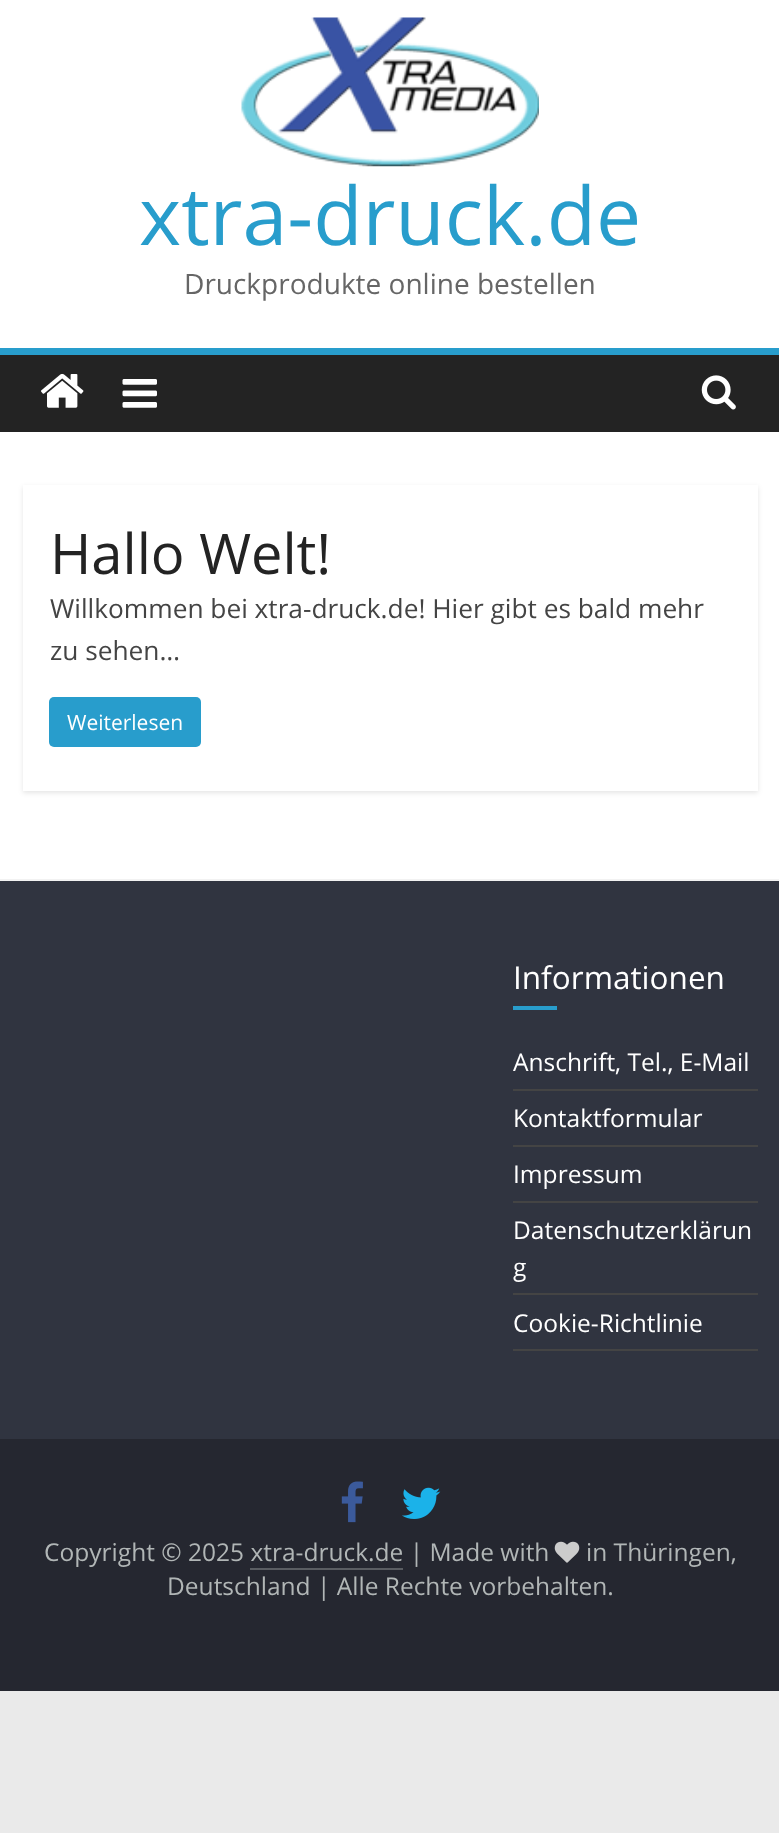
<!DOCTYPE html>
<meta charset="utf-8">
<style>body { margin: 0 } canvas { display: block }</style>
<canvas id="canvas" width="779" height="1833"></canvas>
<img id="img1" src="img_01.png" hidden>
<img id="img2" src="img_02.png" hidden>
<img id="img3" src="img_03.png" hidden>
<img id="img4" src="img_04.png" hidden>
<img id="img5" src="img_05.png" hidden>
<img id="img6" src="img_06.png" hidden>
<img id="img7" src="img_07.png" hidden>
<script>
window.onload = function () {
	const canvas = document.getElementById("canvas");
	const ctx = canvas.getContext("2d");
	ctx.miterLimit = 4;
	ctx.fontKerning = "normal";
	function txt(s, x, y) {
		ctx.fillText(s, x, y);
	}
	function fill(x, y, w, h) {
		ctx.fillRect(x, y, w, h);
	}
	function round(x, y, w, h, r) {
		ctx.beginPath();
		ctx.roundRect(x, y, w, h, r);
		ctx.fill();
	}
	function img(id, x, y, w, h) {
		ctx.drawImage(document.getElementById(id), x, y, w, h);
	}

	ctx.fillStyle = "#EAEAEA";
	fill(0, 0, 779, 1833);
	ctx.fillStyle = "#FFFFFF";
	fill(0, 0, 779, 348);
	img("img1", 241, 17, 298, 150);
	ctx.fillStyle = "#232323";
	fill(0, 355, 779, 77);
	ctx.fillStyle = "#289DCC";
	fill(0, 348, 779, 7);
	img("img2", 41, 373, 43, 35);
	img("img3", 122, 379, 35, 29);
	img("img4", 701, 375, 35, 35);
	ctx.fillStyle = "#FFFFFF";
	fill(0, 432, 779, 447);
	ctx.save();
	ctx.beginPath();
	ctx.moveTo(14, 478);
	ctx.lineTo(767, 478);
	ctx.lineTo(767, 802);
	ctx.lineTo(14, 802);
	ctx.closePath();
	ctx.moveTo(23, 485);
	ctx.lineTo(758, 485);
	ctx.lineTo(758, 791);
	ctx.lineTo(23, 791);
	ctx.closePath();
	ctx.clip("evenodd");
	ctx.fillStyle = "rgba(0, 0, 0, 0.1)";
	ctx.filter = "blur(2.5px)";
	ctx.beginPath();
	ctx.rect(23, 487, 735, 306);
	ctx.fill();
	ctx.filter = "none";
	ctx.restore();
	ctx.fillStyle = "#289DCC";
	round(49, 697, 152, 50, 5);
	ctx.fillStyle = "#303440";
	fill(0, 881, 779, 558);
	ctx.fillStyle = "#F2F2F2";
	fill(0, 879, 779, 2);
	ctx.fillStyle = "#289DCC";
	fill(513, 1006, 44, 4);
	ctx.fillStyle = "#444444";
	fill(513, 1089, 245, 2);
	fill(513, 1145, 245, 2);
	fill(513, 1201, 245, 2);
	fill(513, 1293, 245, 2);
	fill(513, 1349, 245, 2);
	ctx.fillStyle = "#252730";
	fill(0, 1439, 779, 252);
	img("img5", 341, 1481, 22, 42);
	img("img6", 402, 1487, 39, 32);
	img("img7", 554, 1541, 26, 22);
	ctx.fillStyle = "#5A5D62";
	fill(250, 1568, 153, 2);
	ctx.font = "80.5px Open Sans";
	ctx.fillStyle = "#289DCC";
	txt("xtra-druck.de", 139, 245);
	ctx.font = "28px Open Sans";
	ctx.fillStyle = "#666666";
	txt("Druckprodukte online bestellen", 184, 294);
	ctx.font = "56px Open Sans";
	ctx.fillStyle = "#232323";
	txt("Hallo Welt!", 50, 574);
	ctx.font = "26.25px Open Sans";
	ctx.fillStyle = "#444444";
	txt("Willkommen bei xtra-druck.de! Hier gibt es bald mehr", 50, 618);
	txt("zu sehen…", 50, 660);
	ctx.font = "21px Open Sans";
	ctx.fillStyle = "#FFFFFF";
	txt("Weiterlesen", 67, 730);
	ctx.font = "31.5px Open Sans";
	txt("Informationen", 513, 989);
	ctx.font = "24.5px Open Sans";
	txt("Anschrift, Tel., E-Mail", 513, 1071);
	txt("Kontaktformular", 513, 1127);
	txt("Impressum", 513, 1183);
	txt("Datenschutzerklärun", 513, 1239);
	txt("g", 513, 1276);
	txt("Cookie-Richtlinie", 513, 1332);
	ctx.fillStyle = "#B1B6B6";
	txt("Copyright © 2025 xtra-druck.de | Made with", 44, 1561);
	txt("in Thüringen,", 586, 1561);
	txt("Deutschland | Alle Rechte vorbehalten.", 167, 1595);
};
</script>
